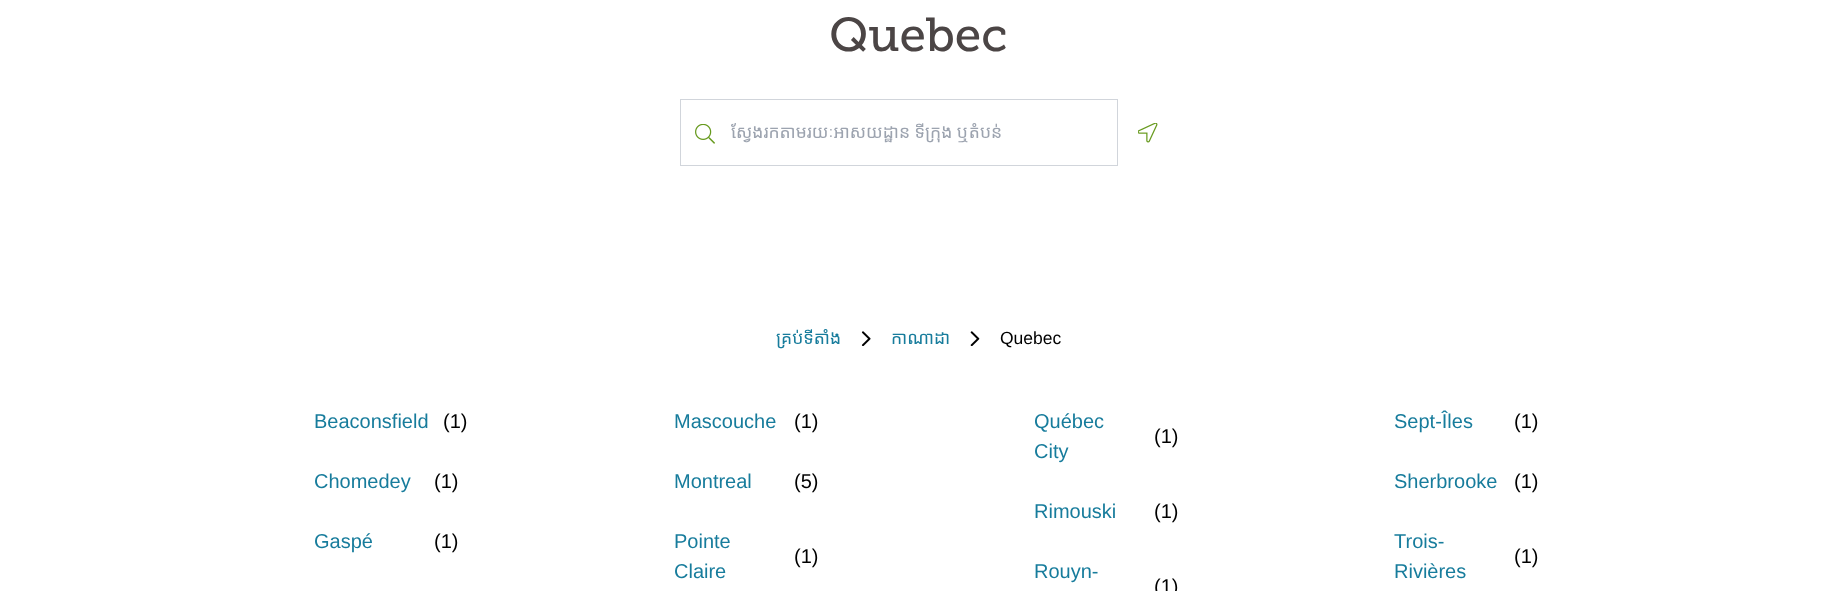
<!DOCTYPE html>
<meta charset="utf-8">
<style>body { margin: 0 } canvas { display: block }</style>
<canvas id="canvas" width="1837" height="591"></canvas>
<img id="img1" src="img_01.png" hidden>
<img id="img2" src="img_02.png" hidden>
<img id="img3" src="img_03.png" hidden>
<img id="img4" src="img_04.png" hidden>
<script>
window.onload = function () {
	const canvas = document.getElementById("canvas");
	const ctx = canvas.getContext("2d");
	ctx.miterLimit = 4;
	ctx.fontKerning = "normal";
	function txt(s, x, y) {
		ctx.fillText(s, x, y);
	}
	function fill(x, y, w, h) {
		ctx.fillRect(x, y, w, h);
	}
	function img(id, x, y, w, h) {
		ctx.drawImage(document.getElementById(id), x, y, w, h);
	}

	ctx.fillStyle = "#FFFFFF";
	fill(0, 0, 1837, 591);
	ctx.strokeStyle = "#D1D5DB";
	ctx.strokeRect(680.5, 99.5, 437, 66);
	img("img1", 695, 124, 20, 20);
	img("img2", 1138, 123, 20, 20);
	img("img3", 861, 331, 10, 15);
	img("img4", 970, 331, 10, 15);
	ctx.font = "47.5px 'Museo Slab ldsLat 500'";
	ctx.fillStyle = "#4B4545";
	txt("Quebec", 829, 51);
	ctx.save();
	ctx.beginPath();
	ctx.rect(731, 120, 335, 24);
	ctx.clip();
	ctx.font = "17.5px Noto Sans Khmer";
	ctx.fillStyle = "#9CA3AF";
	txt("ស្វែងរកតាមរយៈអាសយដ្ឋាន ទីក្រុង ឬតំបន់", 731, 138);
	ctx.restore();
	ctx.font = "17.5px Noto Sans Khmer";
	ctx.fillStyle = "#177C9C";
	txt("គ្រប់ទីតាំង", 776, 344);
	txt("កាណាដា", 891, 344);
	ctx.font = "17.5px Liberation Sans";
	ctx.fillStyle = "#000000";
	txt("Quebec", 1000, 344);
	ctx.font = "20px Liberation Sans";
	ctx.fillStyle = "#177C9C";
	txt("Beaconsfield", 314, 428);
	ctx.fillStyle = "#000000";
	txt("(1)", 443, 428);
	ctx.fillStyle = "#177C9C";
	txt("Mascouche", 674, 428);
	ctx.fillStyle = "#000000";
	txt("(1)", 794, 428);
	ctx.fillStyle = "#177C9C";
	txt("Québec", 1034, 428);
	txt("City", 1034, 458);
	ctx.fillStyle = "#000000";
	txt("(1)", 1154, 443);
	ctx.fillStyle = "#177C9C";
	txt("Sept-Îles", 1394, 428);
	ctx.fillStyle = "#000000";
	txt("(1)", 1514, 428);
	ctx.fillStyle = "#177C9C";
	txt("Chomedey", 314, 488);
	ctx.fillStyle = "#000000";
	txt("(1)", 434, 488);
	ctx.fillStyle = "#177C9C";
	txt("Montreal", 674, 488);
	ctx.fillStyle = "#000000";
	txt("(5)", 794, 488);
	ctx.fillStyle = "#177C9C";
	txt("Sherbrooke", 1394, 488);
	ctx.fillStyle = "#000000";
	txt("(1)", 1514, 488);
	ctx.fillStyle = "#177C9C";
	txt("Rimouski", 1034, 518);
	ctx.fillStyle = "#000000";
	txt("(1)", 1154, 518);
	ctx.fillStyle = "#177C9C";
	txt("Gaspé", 314, 548);
	ctx.fillStyle = "#000000";
	txt("(1)", 434, 548);
	ctx.fillStyle = "#177C9C";
	txt("Pointe", 674, 548);
	txt("Claire", 674, 578);
	ctx.fillStyle = "#000000";
	txt("(1)", 794, 563);
	ctx.fillStyle = "#177C9C";
	txt("Rouyn-", 1034, 578);
	ctx.fillStyle = "#000000";
	txt("(1)", 1154, 593);
	ctx.fillStyle = "#177C9C";
	txt("Trois-", 1394, 548);
	txt("Rivières", 1394, 578);
	ctx.fillStyle = "#000000";
	txt("(1)", 1514, 563);
};
</script>
